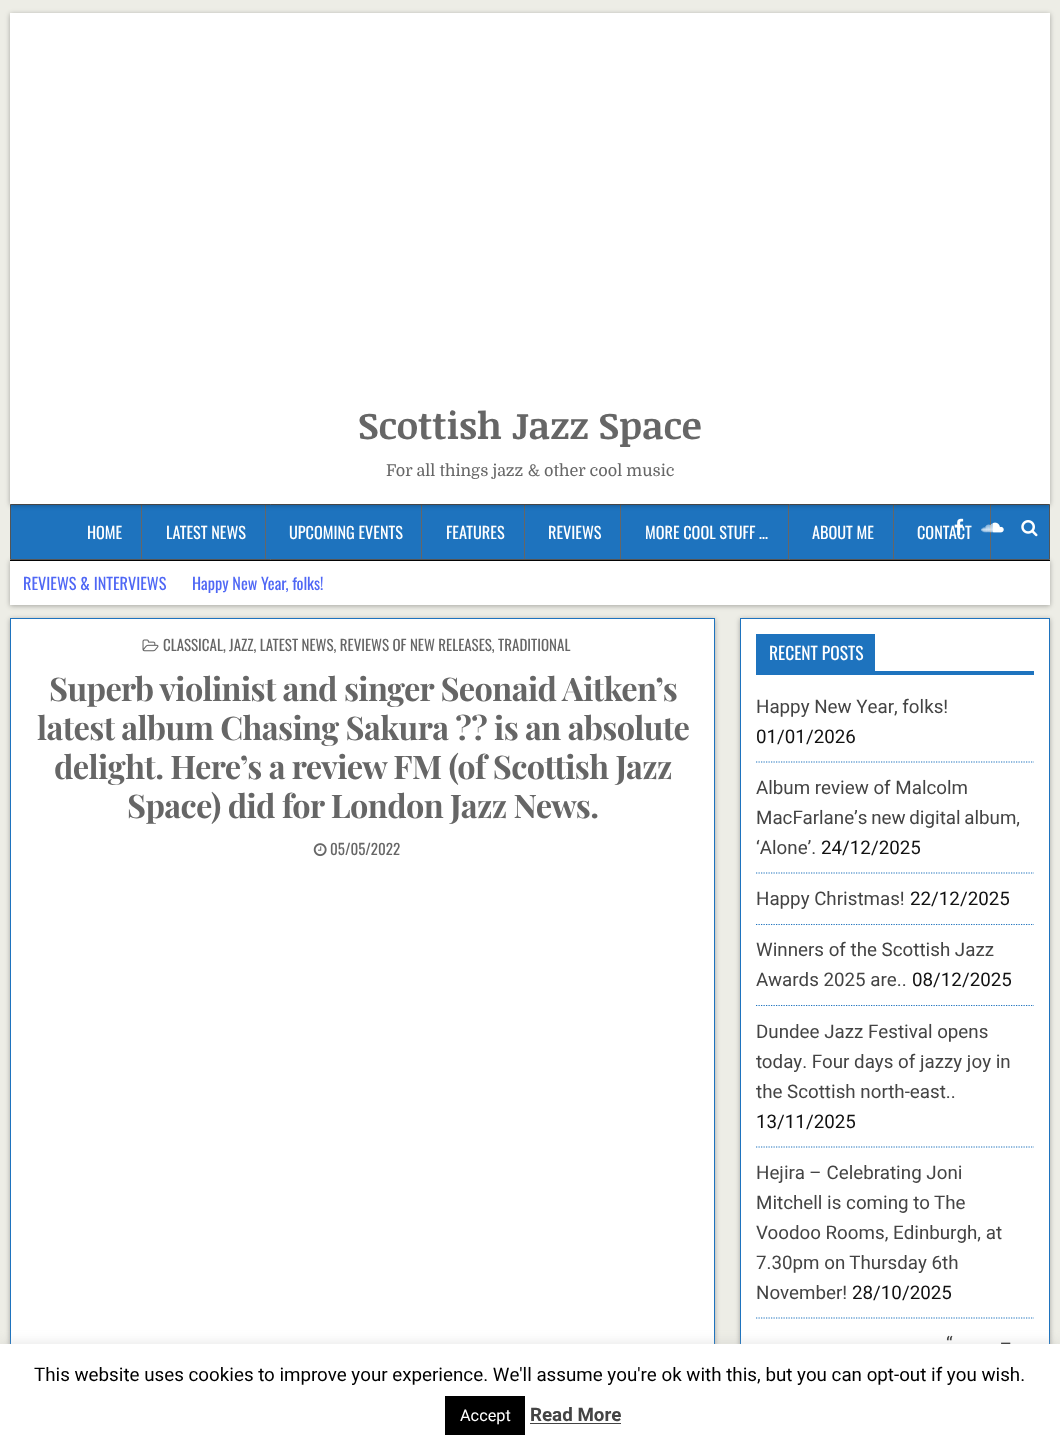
<!DOCTYPE html>
<meta charset="utf-8">
<style>body { margin: 0 } canvas { display: block }</style>
<canvas id="canvas" width="1060" height="1449"></canvas>
<img id="img1" src="img_02.png" hidden>
<img id="img2" src="img_03.png" hidden>
<img id="img3" src="img_04.png" hidden>
<img id="img4" src="img_05.png" hidden>
<img id="img5" src="img_01.png" hidden>
<script>
window.onload = function () {
	const canvas = document.getElementById("canvas");
	const ctx = canvas.getContext("2d");
	ctx.miterLimit = 4;
	ctx.fontKerning = "normal";
	function txt(s, x, y) {
		ctx.fillText(s, x, y);
	}
	function fill(x, y, w, h) {
		ctx.fillRect(x, y, w, h);
	}
	function img(id, x, y, w, h) {
		ctx.drawImage(document.getElementById(id), x, y, w, h);
	}

	ctx.fillStyle = "#EDEDE6";
	fill(0, 0, 1060, 1449);
	ctx.fillStyle = "rgba(0, 0, 0, 0.3)";
	ctx.filter = "blur(2.5px)";
	ctx.beginPath();
	ctx.rect(10, 561, 1040, 45);
	ctx.fill();
	ctx.filter = "none";
	ctx.fillStyle = "#1E73BE";
	ctx.beginPath();
	ctx.rect(10.5, 504.5, 1039, 55);
	ctx.fill();
	ctx.strokeStyle = "#555555";
	ctx.stroke();
	ctx.fillStyle = "#666666";
	fill(141, 505, 1, 54);
	fill(265, 505, 1, 54);
	fill(421, 505, 1, 54);
	fill(524, 505, 1, 54);
	fill(620, 505, 1, 54);
	fill(788, 505, 1, 54);
	fill(893, 505, 1, 54);
	fill(990, 505, 1, 54);
	ctx.fillStyle = "rgba(0, 0, 0, 0.3)";
	ctx.filter = "blur(2.5px)";
	ctx.beginPath();
	ctx.rect(10, 14, 1040, 491);
	ctx.fill();
	ctx.filter = "none";
	ctx.fillStyle = "#FFFFFF";
	fill(10, 13, 1040, 491);
	img("img1", 981, 522, 23, 11);
	img("img2", 1021, 520, 17, 17);
	fill(10, 561, 1040, 44);
	ctx.fillStyle = "#040404";
	fill(10, 560, 1040, 1);
	ctx.fillStyle = "rgba(0, 0, 0, 0.3)";
	ctx.filter = "blur(2.5px)";
	ctx.beginPath();
	ctx.rect(10, 619, 705, 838);
	ctx.fill();
	ctx.filter = "none";
	ctx.fillStyle = "#FFFFFF";
	fill(11, 619, 703, 725);
	ctx.strokeStyle = "#1E73BE";
	ctx.strokeRect(10.5, 618.5, 704, 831);
	img("img3", 142, 639, 17, 13);
	img("img4", 313, 843, 14, 14);
	ctx.fillStyle = "rgba(0, 0, 0, 0.3)";
	ctx.filter = "blur(2.5px)";
	ctx.beginPath();
	ctx.rect(740, 619, 310, 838);
	ctx.fill();
	ctx.filter = "none";
	ctx.fillStyle = "#FFFFFF";
	fill(741, 619, 308, 725);
	ctx.strokeRect(740.5, 618.5, 309, 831);
	ctx.fillStyle = "#1E73BE";
	fill(756, 671, 278, 4);
	fill(756, 634, 119, 37);
	ctx.beginPath();
	ctx.moveTo(756, 762);
	ctx.lineTo(1034, 762);
	ctx.lineWidth = 1.2;
	ctx.setLineDash([1.25, 1.25]);
	ctx.stroke();
	ctx.beginPath();
	ctx.moveTo(756, 873);
	ctx.lineTo(1034, 873);
	ctx.stroke();
	ctx.beginPath();
	ctx.moveTo(756, 924.5);
	ctx.lineTo(1034, 924.5);
	ctx.stroke();
	ctx.beginPath();
	ctx.moveTo(756, 1005.5);
	ctx.lineTo(1034, 1005.5);
	ctx.stroke();
	ctx.beginPath();
	ctx.moveTo(756, 1147);
	ctx.lineTo(1034, 1147);
	ctx.stroke();
	ctx.beginPath();
	ctx.moveTo(756, 1318);
	ctx.lineTo(1034, 1318);
	ctx.stroke();
	ctx.fillStyle = "rgba(172, 171, 171, 0.3)";
	ctx.filter = "blur(6px)";
	ctx.beginPath();
	ctx.rect(0, 1343, 1060, 106);
	ctx.fill();
	ctx.filter = "none";
	ctx.font = "bold 37.5px Noticia Text";
	ctx.fillStyle = "#666666";
	txt("Scottish Jazz Space", 358, 439);
	ctx.font = "16.25px Domine";
	txt("For all things jazz & other cool music", 386, 476);
	ctx.font = "16.25px Oswald";
	ctx.fillStyle = "#FFFFFF";
	txt("HOME", 87, 539);
	txt("LATEST NEWS", 166, 539);
	txt("UPCOMING EVENTS", 289, 539);
	txt("FEATURES", 446, 539);
	txt("REVIEWS", 548, 539);
	txt("MORE COOL STUFF …", 645, 539);
	txt("ABOUT ME", 812, 539);
	txt("CONTACT", 917, 539);
	img("img5", 954, 518, 10, 17);
	ctx.fillStyle = "#4F67F5";
	txt("REVIEWS & INTERVIEWS", 23, 590);
	txt("Happy New Year, folks!", 192, 590);
	ctx.font = "15px Oswald";
	ctx.fillStyle = "#666666";
	txt("CLASSICAL, JAZZ, LATEST NEWS, REVIEWS OF NEW RELEASES, TRADITIONAL", 163, 651);
	ctx.letterSpacing = "-0.6px";
	ctx.font = "bold 32.5px Playfair Display";
	txt("Superb violinist and singer Seonaid Aitken’s", 49, 701);
	txt("latest album Chasing Sakura ?? is an absolute", 37, 740);
	txt("delight. Here’s a review FM (of Scottish Jazz", 54, 779);
	txt("Space) did for London Jazz News.", 127, 818);
	ctx.letterSpacing = "0px";
	ctx.font = "15px Oswald";
	txt("05/05/2022", 330, 855);
	ctx.font = "17.5px Oswald";
	ctx.fillStyle = "#FFFFFF";
	txt("RECENT POSTS", 769, 660);
	ctx.font = "18.75px Heebo";
	ctx.fillStyle = "#444444";
	txt("Happy New Year, folks!", 756, 713);
	ctx.fillStyle = "#111111";
	txt("01/01/2026", 756, 743);
	ctx.fillStyle = "#444444";
	txt("Album review of Malcolm", 756, 794);
	ctx.wordSpacing = "-1px";
	txt("MacFarlane’s new digital album,", 756, 824);
	ctx.wordSpacing = "0px";
	txt("‘Alone’.", 756, 854);
	ctx.fillStyle = "#111111";
	txt("24/12/2025", 821, 854);
	ctx.fillStyle = "#444444";
	txt("Happy Christmas!", 756, 905);
	ctx.fillStyle = "#111111";
	txt("22/12/2025", 910, 905);
	ctx.fillStyle = "#444444";
	txt("Winners of the Scottish Jazz", 756, 956);
	txt("Awards 2025 are..", 756, 986);
	ctx.fillStyle = "#111111";
	txt("08/12/2025", 912, 986);
	ctx.fillStyle = "#444444";
	txt("Dundee Jazz Festival opens", 756, 1038);
	txt("today. Four days of jazzy joy in", 756, 1068);
	txt("the Scottish north-east..", 756, 1098);
	ctx.fillStyle = "#111111";
	txt("13/11/2025", 756, 1128);
	ctx.fillStyle = "#444444";
	txt("Hejira – Celebrating Joni", 756, 1179);
	txt("Mitchell is coming to The", 756, 1209);
	txt("Voodoo Rooms, Edinburgh, at", 756, 1239);
	txt("7.30pm on Thursday 6th", 756, 1269);
	txt("November!", 756, 1299);
	ctx.fillStyle = "#111111";
	txt("28/10/2025", 852, 1299);
	ctx.fillStyle = "#444444";
	txt("“", 946, 1350);
	txt("–", 1000, 1350);
	ctx.fillStyle = "#FFFFFF";
	fill(0, 1344, 1060, 105);
	ctx.fillStyle = "#000000";
	txt("This website uses cookies to improve your experience. We'll assume you're ok with this, but you can opt-out if you wish.", 34, 1381);
	fill(445, 1396, 80, 39);
	ctx.font = "16.25px Heebo";
	ctx.fillStyle = "#FFFFFF";
	txt("Accept", 460, 1421);
	ctx.font = "bold 18.75px Heebo";
	ctx.fillStyle = "#444444";
	txt("Read More", 530, 1421);
	fill(530, 1423, 91, 1);
};
</script>
